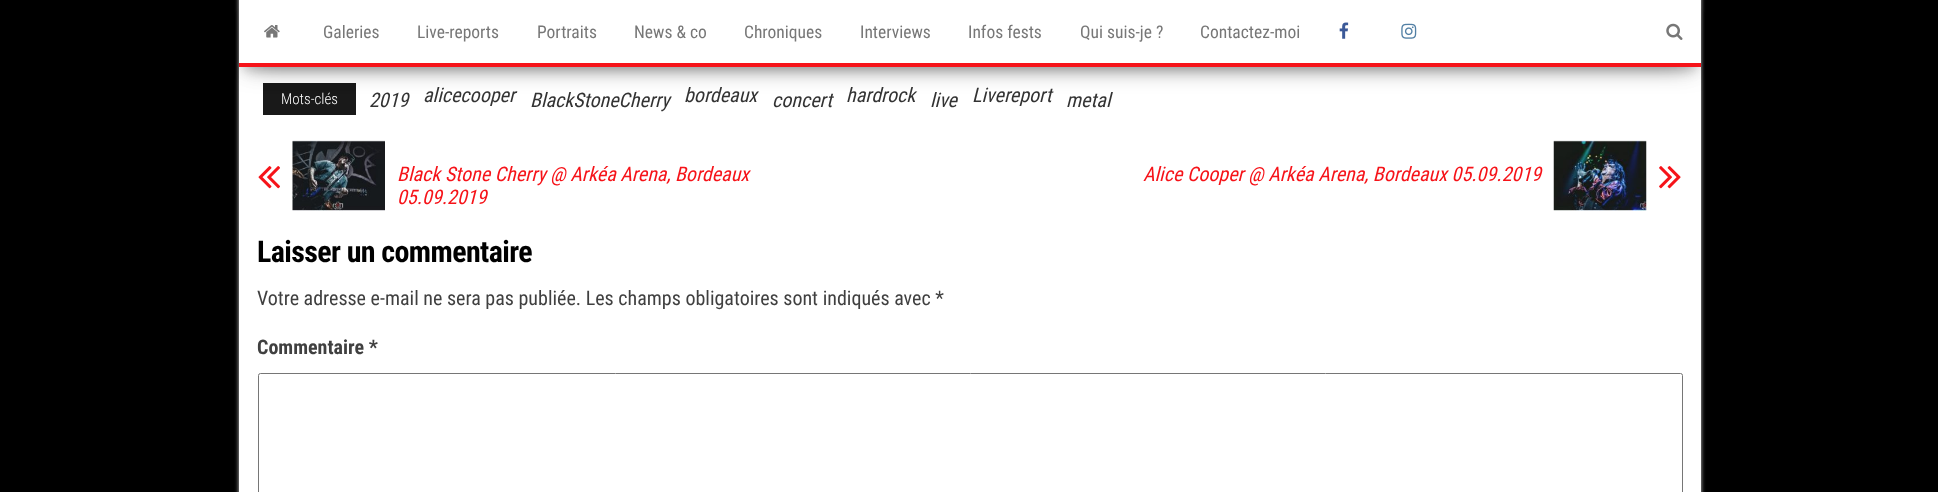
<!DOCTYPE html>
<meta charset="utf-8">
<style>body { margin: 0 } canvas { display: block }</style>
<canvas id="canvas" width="1938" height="492"></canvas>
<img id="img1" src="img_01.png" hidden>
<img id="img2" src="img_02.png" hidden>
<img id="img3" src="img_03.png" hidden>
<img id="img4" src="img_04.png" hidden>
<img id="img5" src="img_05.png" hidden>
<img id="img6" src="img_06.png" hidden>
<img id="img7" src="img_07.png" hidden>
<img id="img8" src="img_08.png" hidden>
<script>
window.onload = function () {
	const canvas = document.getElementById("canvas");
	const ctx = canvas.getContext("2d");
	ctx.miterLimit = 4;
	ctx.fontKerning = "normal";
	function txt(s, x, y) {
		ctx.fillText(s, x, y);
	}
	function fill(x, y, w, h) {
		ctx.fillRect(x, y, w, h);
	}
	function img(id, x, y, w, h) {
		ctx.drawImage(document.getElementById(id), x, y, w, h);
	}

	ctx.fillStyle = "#000000";
	fill(0, 0, 1938, 492);
	ctx.fillStyle = "#CACACA";
	ctx.filter = "blur(2px)";
	ctx.beginPath();
	ctx.rect(239, -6, 1462, 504);
	ctx.fill();
	ctx.filter = "none";
	ctx.fillStyle = "#FFFFFF";
	fill(239, 67, 1462, 425);
	ctx.fillStyle = "#191919";
	fill(263, 83, 93, 32);
	ctx.fillStyle = "rgba(0, 0, 0, 0.2)";
	ctx.filter = "blur(6px)";
	ctx.beginPath();
	ctx.rect(245, 16, 1450, 54);
	ctx.fill();
	ctx.filter = "none";
	ctx.fillStyle = "rgba(0, 0, 0, 0.12)";
	ctx.filter = "blur(12.5px)";
	ctx.beginPath();
	ctx.rect(239, 4, 1462, 66);
	ctx.fill();
	ctx.filter = "none";
	ctx.fillStyle = "rgba(0, 0, 0, 0.42)";
	ctx.filter = "blur(12.5px)";
	ctx.beginPath();
	ctx.rect(254, 28, 1432, 36);
	ctx.fill();
	ctx.filter = "none";
	ctx.fillStyle = "#FFFFFF";
	fill(239, 0, 1462, 63);
	ctx.fillStyle = "#F61319";
	fill(239, 63, 1462, 4);
	img("img1", 264, 25, 16, 13);
	img("img2", 1339, 22, 10, 17);
	img("img3", 1401, 23, 16, 16);
	img("img4", 1666, 23, 17, 17);
	img("img5", 258, 166, 22, 23);
	img("img6", 292, 140, 93, 71);
	img("img7", 1553, 140, 94, 71);
	img("img8", 1659, 166, 22, 23);
	ctx.beginPath();
	ctx.roundRect(258.5, 373.5, 1424, 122, 2);
	ctx.strokeStyle = "#767676";
	ctx.stroke();
	ctx.font = "17.5px Roboto Condensed";
	ctx.fillStyle = "#777777";
	txt("Galeries", 323, 38);
	txt("Live-reports", 417, 38);
	txt("Portraits", 537, 38);
	txt("News & co", 634, 38);
	txt("Chroniques", 744, 38);
	txt("Interviews", 860, 38);
	txt("Infos fests", 968, 38);
	txt("Qui suis-je ?", 1080, 38);
	txt("Contactez-moi", 1200, 38);
	ctx.font = "300 15px Roboto Condensed";
	ctx.fillStyle = "#FFFFFF";
	txt("Mots-clés", 281, 104);
	ctx.font = "italic 20px Roboto Condensed";
	ctx.fillStyle = "#333333";
	txt("2019", 369, 107);
	txt("alicecooper", 423, 102);
	txt("BlackStoneCherry", 530, 107);
	txt("bordeaux", 684, 102);
	txt("concert", 772, 107);
	txt("hardrock", 846, 102);
	txt("live", 930, 107);
	txt("Livereport", 972, 102);
	txt("metal", 1066, 107);
	ctx.fillStyle = "#F61319";
	txt("Black Stone Cherry @ Arkéa Arena, Bordeaux", 397, 181);
	txt("05.09.2019", 397, 204);
	txt("Alice Cooper @ Arkéa Arena, Bordeaux 05.09.2019", 1143, 181);
	ctx.letterSpacing = "-0.6px";
	ctx.font = "bold 30px Roboto Condensed";
	ctx.fillStyle = "#000000";
	txt("Laisser un commentaire", 257, 262);
	ctx.letterSpacing = "0px";
	ctx.font = "20px Roboto Condensed";
	ctx.fillStyle = "#404040";
	txt("Votre adresse e-mail ne sera pas publiée. Les champs obligatoires sont indiqués avec *", 257, 305);
	ctx.font = "bold 20px Roboto Condensed";
	txt("Commentaire *", 257, 354);
};
</script>
